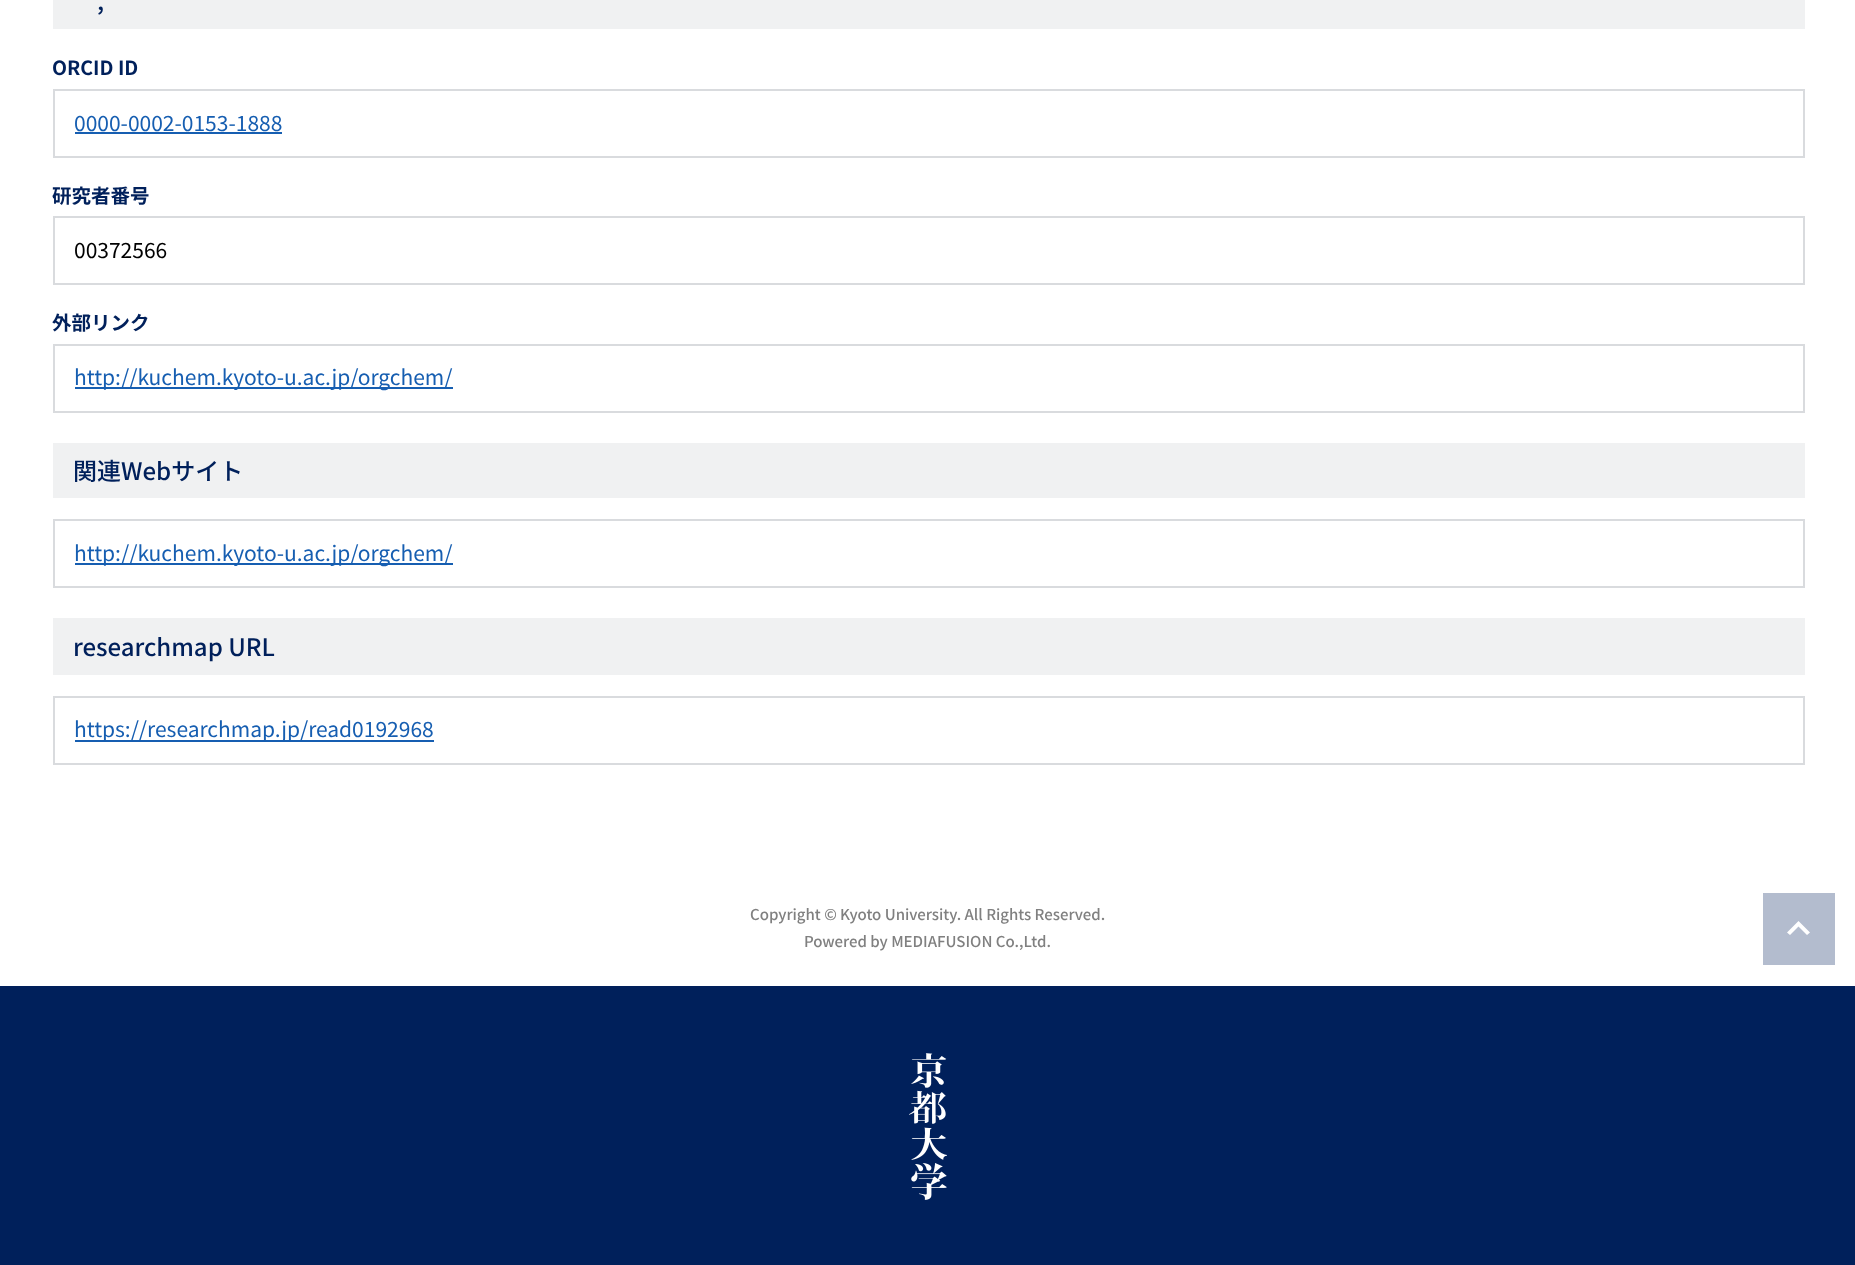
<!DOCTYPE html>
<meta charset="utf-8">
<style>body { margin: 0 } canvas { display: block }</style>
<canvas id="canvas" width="1855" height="1265"></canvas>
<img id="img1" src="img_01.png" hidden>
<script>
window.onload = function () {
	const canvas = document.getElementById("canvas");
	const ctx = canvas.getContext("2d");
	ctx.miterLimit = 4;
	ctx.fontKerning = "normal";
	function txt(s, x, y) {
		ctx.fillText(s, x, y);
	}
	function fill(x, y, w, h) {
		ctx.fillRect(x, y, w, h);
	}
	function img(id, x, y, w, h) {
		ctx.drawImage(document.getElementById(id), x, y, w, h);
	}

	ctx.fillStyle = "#FFFFFF";
	fill(0, 0, 1855, 1265);
	ctx.fillStyle = "#F0F1F2";
	fill(53, 0, 1752, 29);
	ctx.strokeStyle = "#D9DBDE";
	ctx.lineWidth = 2;
	ctx.strokeRect(54, 90, 1750, 67);
	ctx.fillStyle = "#165EB1";
	fill(75, 132, 207, 2);
	ctx.strokeRect(54, 217, 1750, 67);
	ctx.strokeRect(54, 345, 1750, 67);
	fill(75, 387, 378, 2);
	ctx.fillStyle = "#F0F1F2";
	fill(53, 443, 1752, 55);
	ctx.strokeRect(54, 520, 1750, 67);
	ctx.fillStyle = "#165EB1";
	fill(75, 563, 378, 2);
	ctx.fillStyle = "#F0F1F2";
	fill(53, 618, 1752, 57);
	ctx.strokeRect(54, 697, 1750, 67);
	ctx.fillStyle = "#165EB1";
	fill(75, 740, 359, 2);
	ctx.fillStyle = "#B3BCCE";
	fill(1763, 893, 72, 72);
	ctx.fillStyle = "#FFFFFF";
	ctx.beginPath();
	ctx.moveTo(1790, 935);
	ctx.lineTo(1787, 932.5);
	ctx.lineTo(1798.5, 921);
	ctx.lineTo(1810, 932.5);
	ctx.lineTo(1807, 935);
	ctx.lineTo(1798.5, 926.5);
	ctx.closePath();
	ctx.fill();
	ctx.fillStyle = "#00205B";
	fill(0, 986, 1855, 279);
	img("img1", 909, 1053, 38, 147);
	ctx.font = "500 24px Noto Sans JP";
	txt(",", 97, 10);
	ctx.font = "bold 19.5px Noto Sans JP";
	txt("ORCID ID", 52, 75);
	ctx.font = "21px Noto Sans JP";
	ctx.fillStyle = "#165EB1";
	txt("0000-0002-0153-1888", 74, 131);
	ctx.font = "bold 19.5px Noto Sans JP";
	ctx.fillStyle = "#00205B";
	txt("研究者番号", 52, 203);
	ctx.font = "21px Noto Sans JP";
	ctx.fillStyle = "#000000";
	txt("00372566", 74, 258);
	ctx.font = "bold 19.5px Noto Sans JP";
	ctx.fillStyle = "#00205B";
	txt("外部リンク", 52, 330);
	ctx.font = "21px Noto Sans JP";
	ctx.fillStyle = "#165EB1";
	txt("http://kuchem.kyoto-u.ac.jp/orgchem/", 74, 385);
	ctx.font = "500 24px Noto Sans JP";
	ctx.fillStyle = "#00205B";
	txt("関連Webサイト", 73, 480);
	ctx.font = "21px Noto Sans JP";
	ctx.fillStyle = "#165EB1";
	txt("http://kuchem.kyoto-u.ac.jp/orgchem/", 74, 561);
	ctx.font = "500 24px Noto Sans JP";
	ctx.fillStyle = "#00205B";
	txt("researchmap URL", 73, 656);
	ctx.font = "21px Noto Sans JP";
	ctx.fillStyle = "#165EB1";
	txt("https://researchmap.jp/read0192968", 74, 737);
	ctx.font = "500 15px Noto Sans JP";
	ctx.fillStyle = "#808080";
	txt("Copyright © Kyoto University. All Rights Reserved.", 750, 920);
	txt("Powered by MEDIAFUSION Co.,Ltd.", 804, 947);
};
</script>
